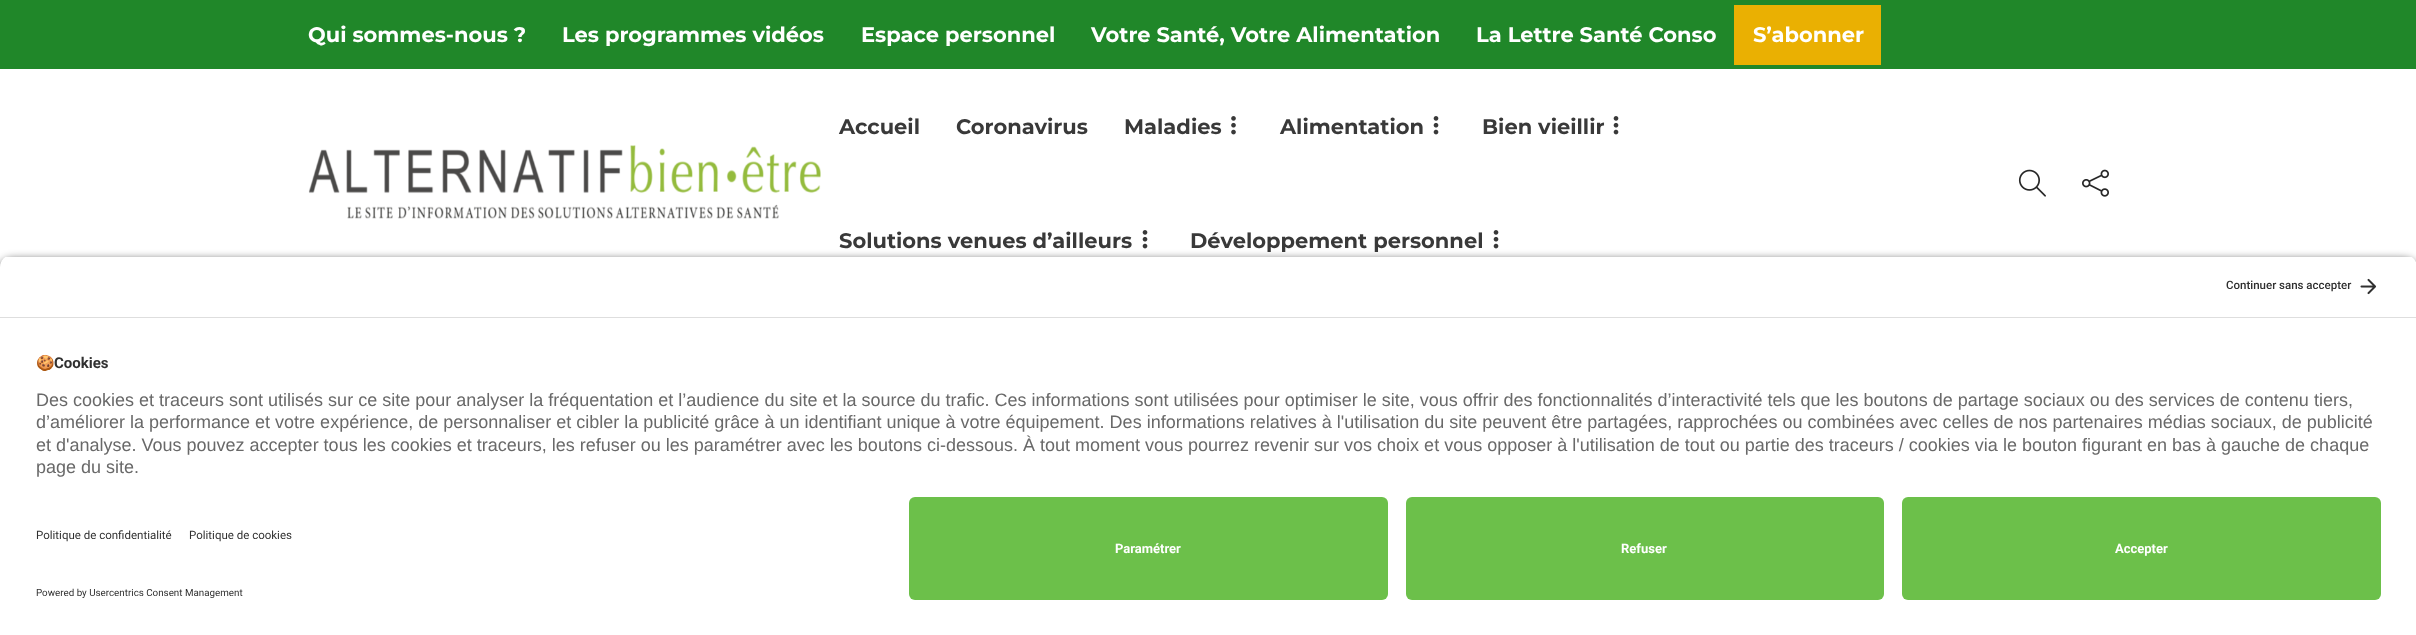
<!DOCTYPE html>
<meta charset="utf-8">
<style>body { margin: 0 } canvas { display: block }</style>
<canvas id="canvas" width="2416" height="635"></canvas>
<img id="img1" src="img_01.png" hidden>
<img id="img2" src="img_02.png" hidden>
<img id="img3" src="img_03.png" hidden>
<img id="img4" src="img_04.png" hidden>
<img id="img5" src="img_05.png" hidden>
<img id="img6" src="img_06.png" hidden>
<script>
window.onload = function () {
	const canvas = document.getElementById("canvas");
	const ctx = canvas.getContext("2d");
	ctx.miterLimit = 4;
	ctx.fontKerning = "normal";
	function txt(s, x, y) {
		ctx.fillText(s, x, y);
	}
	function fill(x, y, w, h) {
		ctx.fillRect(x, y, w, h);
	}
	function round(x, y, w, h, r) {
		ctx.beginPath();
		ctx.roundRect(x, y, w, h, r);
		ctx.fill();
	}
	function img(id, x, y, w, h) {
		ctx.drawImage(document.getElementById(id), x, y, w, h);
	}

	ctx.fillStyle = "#FFFFFF";
	fill(0, 0, 2416, 635);
	ctx.fillStyle = "#208729";
	fill(0, 0, 2416, 69);
	ctx.fillStyle = "#EAB002";
	fill(1734, 5, 147, 60);
	img("img1", 308, 145, 513, 74);
	img("img2", 1231, 116, 5, 19);
	img("img3", 1433, 116, 6, 19);
	img("img3", 1613, 116, 6, 19);
	img("img3", 1142, 230, 6, 19);
	img("img3", 1493, 230, 6, 19);
	img("img4", 2018, 169, 28, 28);
	img("img5", 2082, 169, 27, 28);
	ctx.fillStyle = "rgba(0, 0, 0, 0.8)";
	ctx.filter = "blur(5px)";
	ctx.beginPath();
	ctx.roundRect(0, 260, 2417, 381, 12);
	ctx.fill();
	ctx.filter = "none";
	ctx.save();
	ctx.beginPath();
	ctx.moveTo(12, 255);
	ctx.lineTo(2405, 255);
	ctx.bezierCurveTo(2411.5, 255, 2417, 260.5, 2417, 267);
	ctx.lineTo(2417, 485);
	ctx.lineTo(0, 485);
	ctx.lineTo(0, 267);
	ctx.bezierCurveTo(0, 260.5, 5.5, 255, 12, 255);
	ctx.closePath();
	ctx.clip();
	ctx.fillStyle = "#FFFFFF";
	fill(0, 257, 2416, 60);
	ctx.restore();
	ctx.fillStyle = "#DEDEDE";
	fill(0, 317, 2416, 1);
	img("img6", 2360, 278, 17, 17);
	ctx.fillStyle = "#FFFFFF";
	fill(0, 318, 2416, 317);
	ctx.fillStyle = "#6CC04A";
	round(909, 497, 479, 103, 6);
	round(1406, 497, 478, 103, 6);
	round(1902, 497, 479, 103, 6);
	ctx.font = "bold 21px Montserrat";
	ctx.fillStyle = "#FFFFFF";
	txt("Qui sommes-nous ?", 308, 42);
	txt("Les programmes vidéos", 562, 42);
	txt("Espace personnel", 861, 42);
	txt("Votre Santé, Votre Alimentation", 1091, 42);
	txt("La Lettre Santé Conso", 1476, 42);
	txt("S’abonner", 1753, 42);
	ctx.fillStyle = "#393939";
	txt("Accueil", 839, 134);
	txt("Coronavirus", 956, 134);
	txt("Maladies", 1124, 134);
	txt("Alimentation", 1280, 134);
	txt("Bien vieillir", 1482, 134);
	txt("Solutions venues d’ailleurs", 839, 248);
	txt("Développement personnel", 1190, 248);
	ctx.font = "500 11.5px Roboto";
	ctx.fillStyle = "#303030";
	txt("Continuer sans accepter", 2226, 289);
	ctx.font = "bold 15px Noto Color Emoji";
	txt("🍪", 36, 368);
	ctx.font = "bold 15px Roboto";
	txt("Cookies", 54, 368);
	ctx.font = "18px Liberation Sans";
	ctx.fillStyle = "#696969";
	txt("Des cookies et traceurs sont utilisés sur ce site pour analyser la fréquentation et l’audience du site et la source du trafic. Ces informations sont utilisées pour optimiser le site, vous offrir des fonctionnalités d’interactivité tels que les boutons de partage sociaux ou des services de contenu tiers,", 36, 406);
	txt("d’améliorer la performance et votre expérience, de personnaliser et cibler la publicité grâce à un identifiant unique à votre équipement. Des informations relatives à l'utilisation du site peuvent être partagées, rapprochées ou combinées avec celles de nos partenaires médias sociaux, de publicité", 36, 428);
	txt("et d'analyse. Vous pouvez accepter tous les cookies et traceurs, les refuser ou les paramétrer avec les boutons ci-dessous. À tout moment vous pourrez revenir sur vos choix et vous opposer à l'utilisation de tout ou partie des traceurs / cookies via le bouton figurant en bas à gauche de chaque", 36, 451);
	txt("page du site.", 36, 473);
	ctx.font = "11.5px Roboto";
	ctx.fillStyle = "#303030";
	txt("Politique de confidentialité", 36, 539);
	txt("Politique de cookies", 189, 539);
	ctx.font = "9.8px Roboto";
	txt("Powered by Usercentrics Consent Management", 36, 596);
	ctx.font = "bold 13px Roboto";
	ctx.fillStyle = "#FFFFFF";
	txt("Paramétrer", 1115, 553);
	txt("Refuser", 1621, 553);
	txt("Accepter", 2115, 553);
};
</script>
